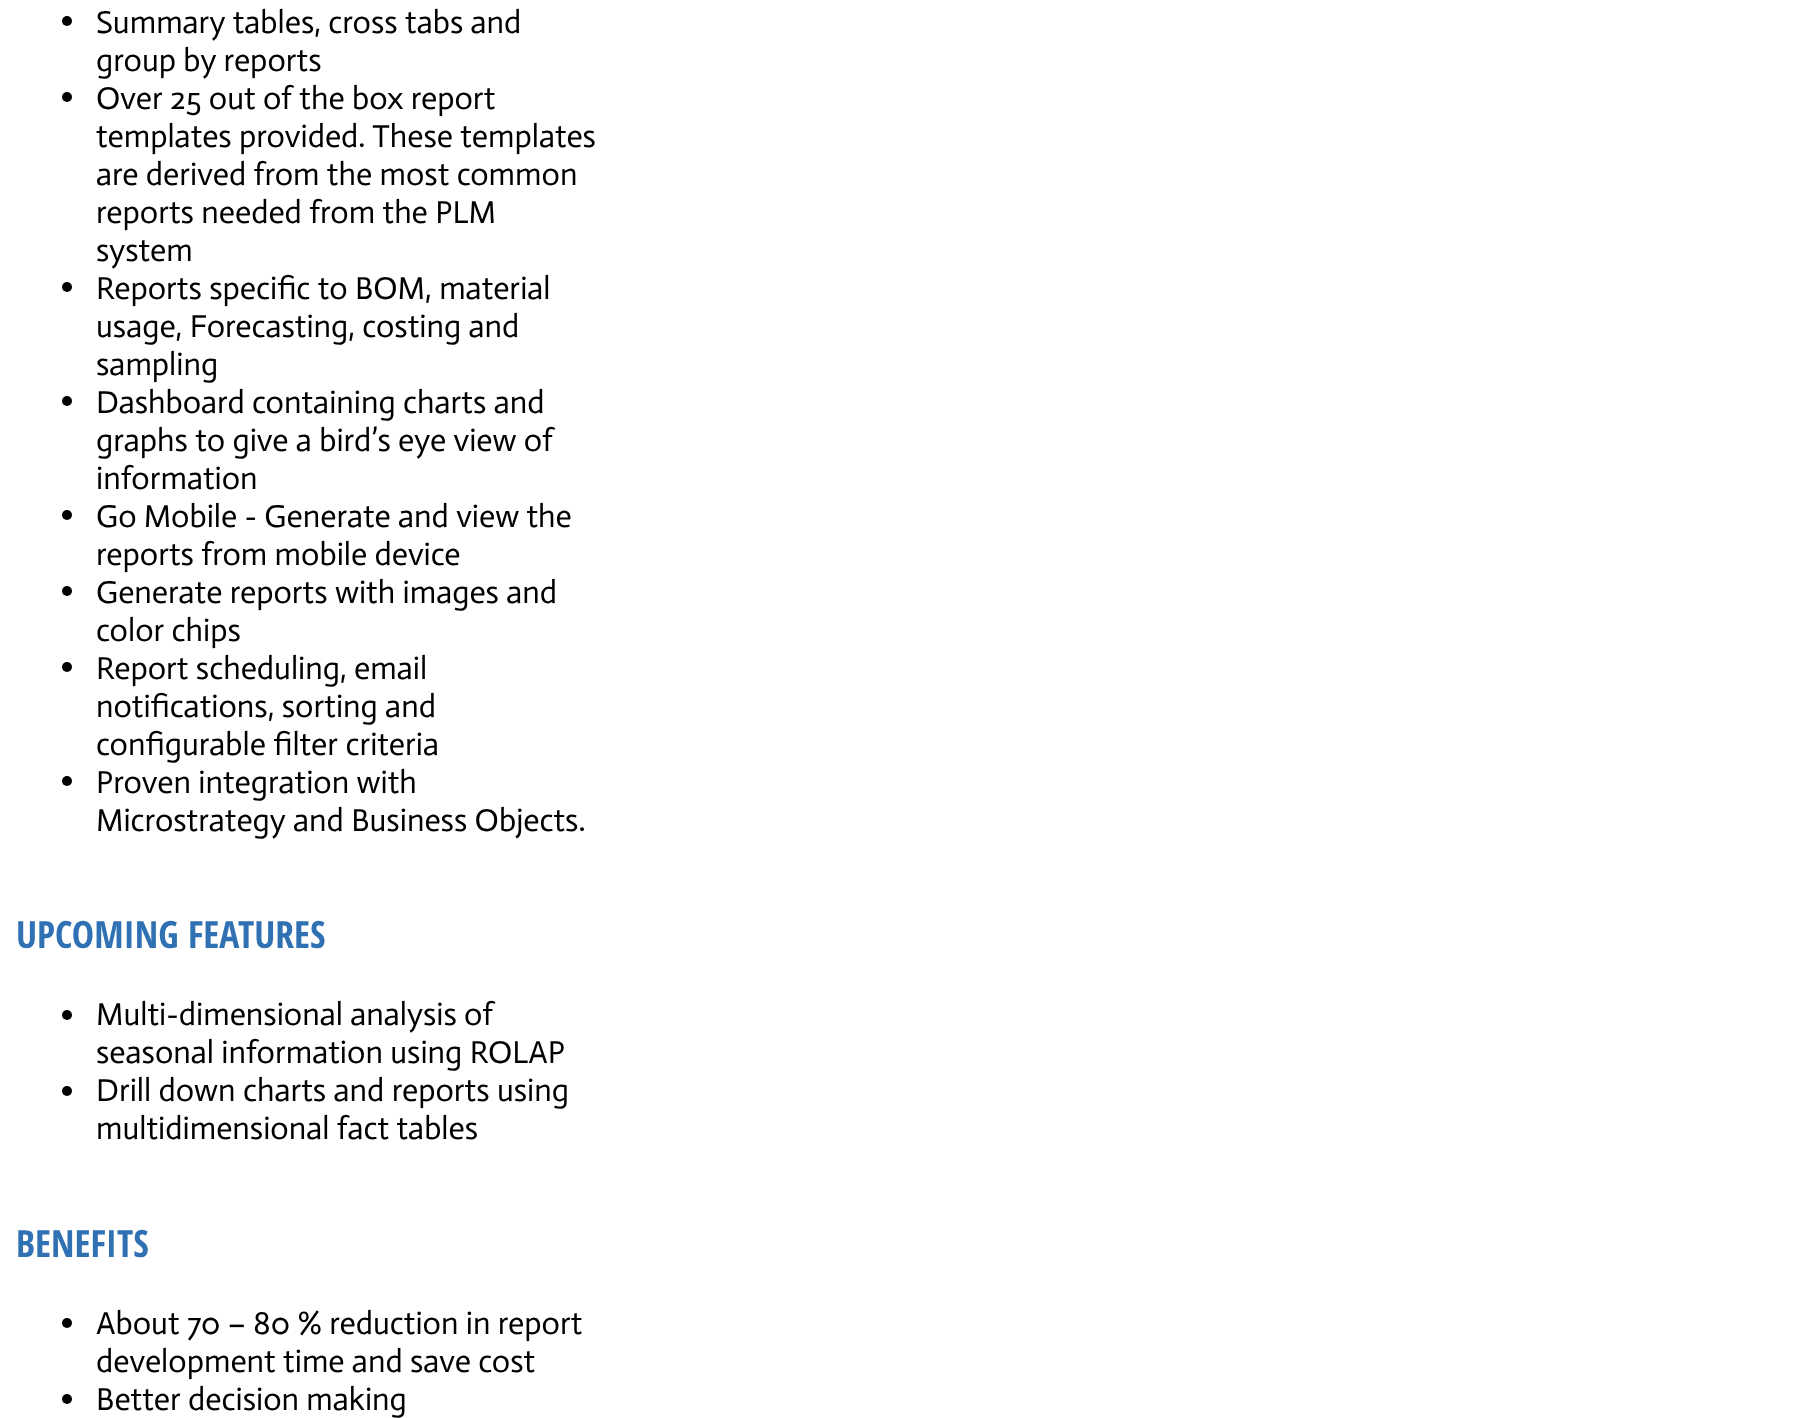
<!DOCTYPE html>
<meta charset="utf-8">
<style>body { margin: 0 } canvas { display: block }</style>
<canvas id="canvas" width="1800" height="1418"></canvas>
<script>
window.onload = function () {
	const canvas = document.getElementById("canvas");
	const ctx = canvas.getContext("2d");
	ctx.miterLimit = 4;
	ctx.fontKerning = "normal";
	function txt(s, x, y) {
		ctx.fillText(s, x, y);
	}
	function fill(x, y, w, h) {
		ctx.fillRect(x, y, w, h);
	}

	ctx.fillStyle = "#FFFFFF";
	fill(0, 0, 1800, 1418);
	ctx.fillStyle = "#000000";
	ctx.beginPath();
	ctx.arc(67, 21, 5, 0, Math.PI * 2);
	ctx.fill();
	ctx.beginPath();
	ctx.arc(67, 97, 5, 0, Math.PI * 2);
	ctx.fill();
	ctx.beginPath();
	ctx.arc(67, 287, 5, 0, Math.PI * 2);
	ctx.fill();
	ctx.beginPath();
	ctx.arc(67, 401, 5, 0, Math.PI * 2);
	ctx.fill();
	ctx.beginPath();
	ctx.arc(67, 515, 5, 0, Math.PI * 2);
	ctx.fill();
	ctx.beginPath();
	ctx.arc(67, 591, 5, 0, Math.PI * 2);
	ctx.fill();
	ctx.beginPath();
	ctx.arc(67, 667, 5, 0, Math.PI * 2);
	ctx.fill();
	ctx.beginPath();
	ctx.arc(67, 781, 5, 0, Math.PI * 2);
	ctx.fill();
	ctx.beginPath();
	ctx.arc(67, 1015, 5, 0, Math.PI * 2);
	ctx.fill();
	ctx.beginPath();
	ctx.arc(67, 1091, 5, 0, Math.PI * 2);
	ctx.fill();
	ctx.beginPath();
	ctx.arc(67, 1323, 5, 0, Math.PI * 2);
	ctx.fill();
	ctx.beginPath();
	ctx.arc(67, 1399, 5, 0, Math.PI * 2);
	ctx.fill();
	ctx.font = "32px Actor";
	txt("Summary tables, cross tabs and", 96, 33);
	txt("group by reports", 96, 71);
	txt("Over 25 out of the box report", 96, 109);
	txt("templates provided. These templates", 96, 147);
	txt("are derived from the most common", 96, 185);
	txt("reports needed from the PLM", 96, 223);
	txt("system", 96, 261);
	txt("Reports specific to BOM, material", 96, 299);
	txt("usage, Forecasting, costing and", 96, 337);
	txt("sampling", 96, 375);
	txt("Dashboard containing charts and", 96, 413);
	txt("graphs to give a bird’s eye view of", 96, 451);
	txt("information", 96, 489);
	txt("Go Mobile - Generate and view the", 96, 527);
	txt("reports from mobile device", 96, 565);
	txt("Generate reports with images and", 96, 603);
	txt("color chips", 96, 641);
	txt("Report scheduling, email", 96, 679);
	txt("notifications, sorting and", 96, 717);
	txt("configurable filter criteria", 96, 755);
	txt("Proven integration with", 96, 793);
	txt("Microstrategy and Business Objects.", 96, 831);
	ctx.font = "bold 37.5px Open Sans Condensed";
	ctx.fillStyle = "#2F71B3";
	txt("UPCOMING FEATURES", 16, 948);
	ctx.font = "32px Actor";
	ctx.fillStyle = "#000000";
	txt("Multi-dimensional analysis of", 96, 1025);
	txt("seasonal information using ROLAP", 96, 1063);
	txt("Drill down charts and reports using", 96, 1101);
	txt("multidimensional fact tables", 96, 1139);
	ctx.font = "bold 37.5px Open Sans Condensed";
	ctx.fillStyle = "#2F71B3";
	txt("BENEFITS", 16, 1257);
	ctx.font = "32px Actor";
	ctx.fillStyle = "#000000";
	txt("About 70 – 80 % reduction in report", 96, 1334);
	txt("development time and save cost", 96, 1372);
	txt("Better decision making", 96, 1410);
};
</script>
